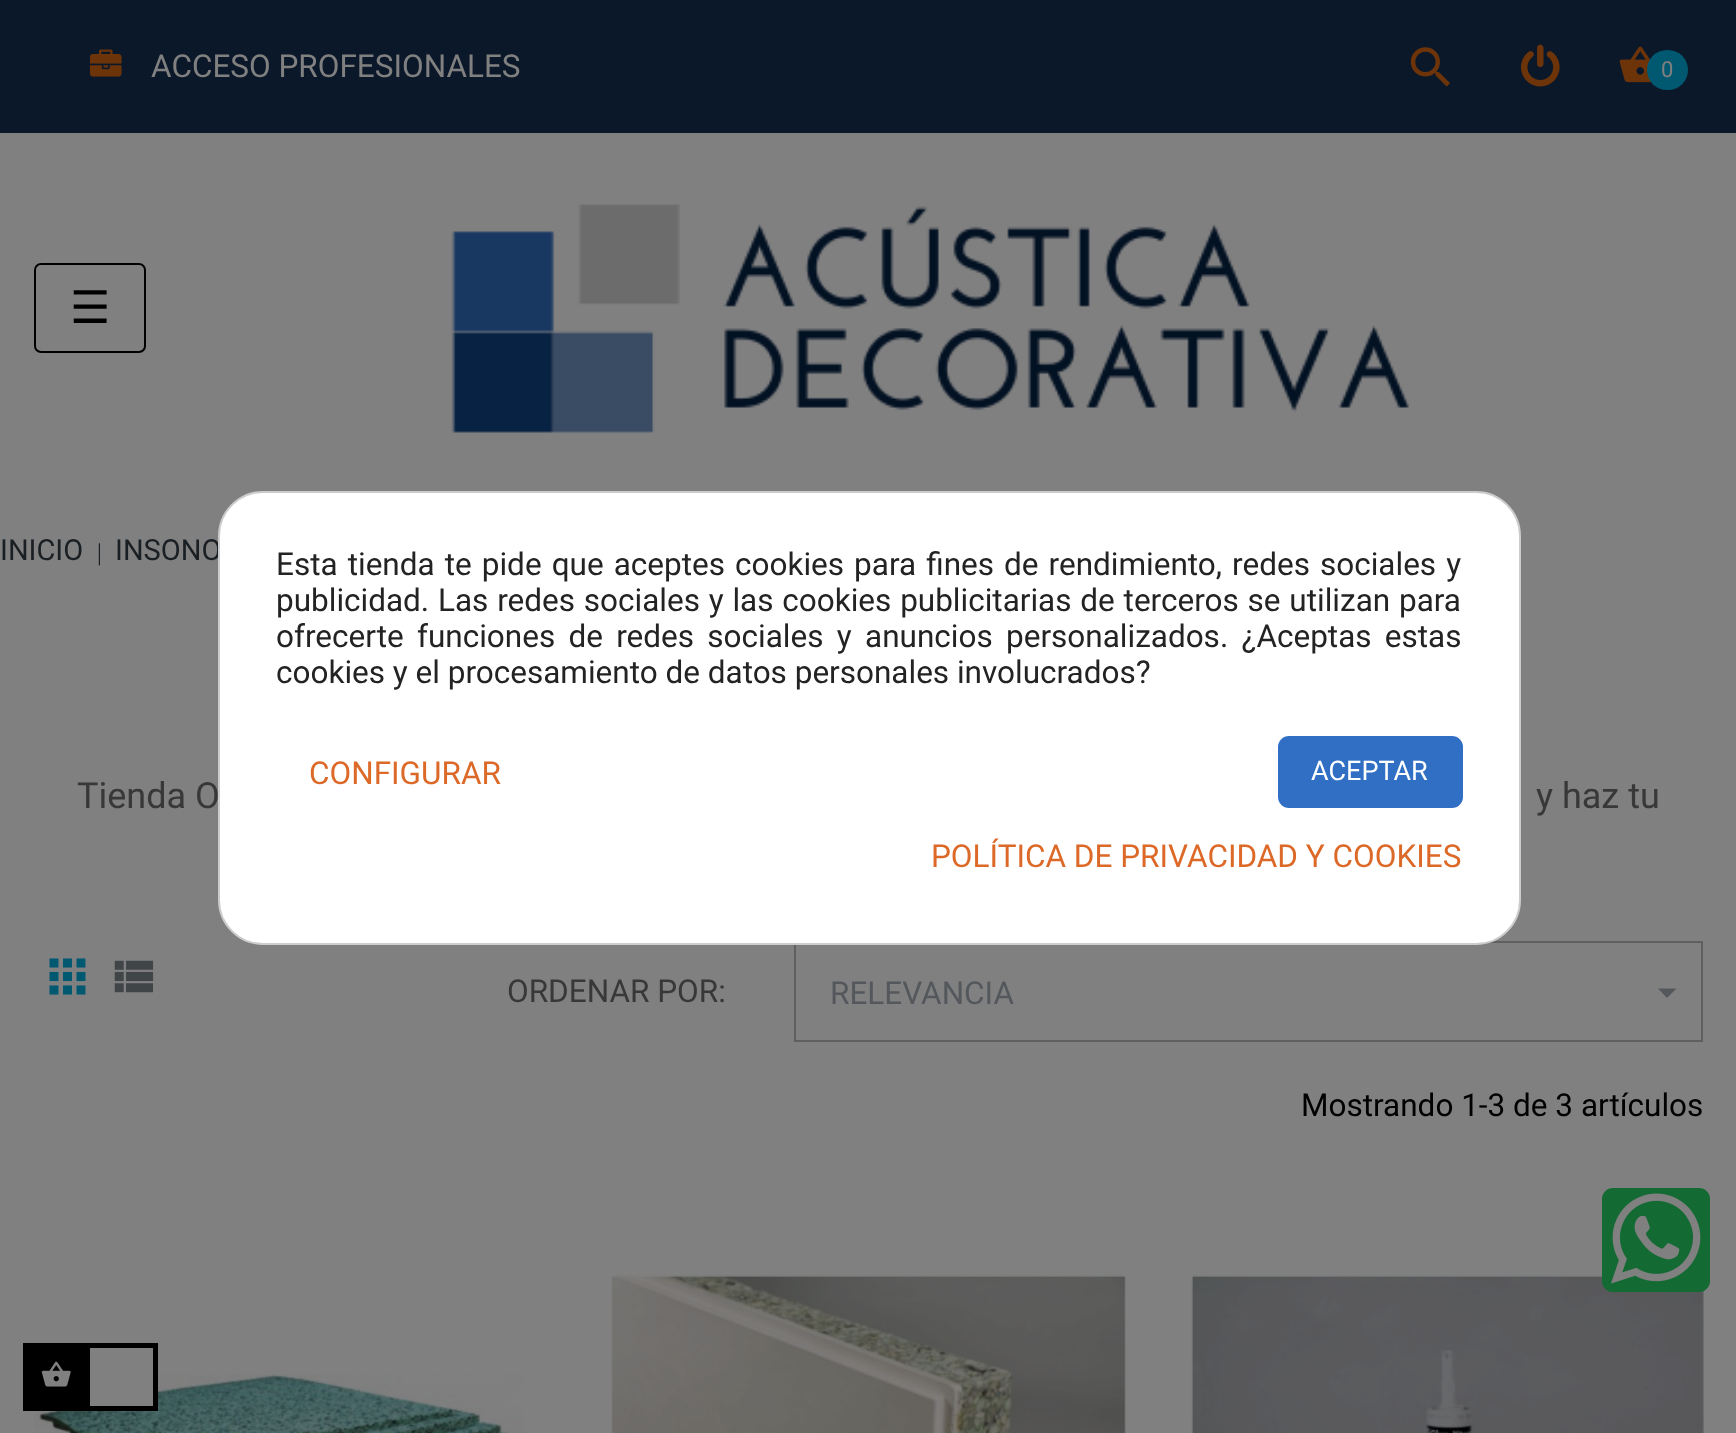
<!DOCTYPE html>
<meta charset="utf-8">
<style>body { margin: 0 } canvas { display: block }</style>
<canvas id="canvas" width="1736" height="1433"></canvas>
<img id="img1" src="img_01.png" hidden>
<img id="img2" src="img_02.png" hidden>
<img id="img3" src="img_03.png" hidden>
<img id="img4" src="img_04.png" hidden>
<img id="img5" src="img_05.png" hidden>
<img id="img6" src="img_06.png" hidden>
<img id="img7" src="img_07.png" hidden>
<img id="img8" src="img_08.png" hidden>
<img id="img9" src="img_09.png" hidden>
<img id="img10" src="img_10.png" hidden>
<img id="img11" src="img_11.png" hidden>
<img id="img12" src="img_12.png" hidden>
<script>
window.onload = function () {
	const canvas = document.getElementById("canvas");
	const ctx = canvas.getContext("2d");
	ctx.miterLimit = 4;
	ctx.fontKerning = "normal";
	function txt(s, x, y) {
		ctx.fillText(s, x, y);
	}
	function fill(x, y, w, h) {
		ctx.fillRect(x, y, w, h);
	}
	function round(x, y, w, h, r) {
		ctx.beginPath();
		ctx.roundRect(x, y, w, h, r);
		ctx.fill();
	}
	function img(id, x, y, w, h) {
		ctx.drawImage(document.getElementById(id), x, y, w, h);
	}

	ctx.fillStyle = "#808080";
	fill(0, 0, 1736, 1433);
	ctx.fillStyle = "#0B1829";
	fill(0, 0, 1736, 133);
	img("img1", 90, 49, 32, 28);
	img("img2", 1410, 47, 40, 40);
	img("img3", 1521, 44, 39, 43);
	img("img4", 1619, 46, 33, 37);
	ctx.fillStyle = "#005971";
	round(1647, 50, 41, 40, 20);
	ctx.beginPath();
	ctx.roundRect(35, 264, 110, 88, 6);
	ctx.strokeStyle = "#000000";
	ctx.lineWidth = 2;
	ctx.stroke();
	img("img5", 451, 204, 958, 229);
	img("img6", 49, 958, 37, 37);
	img("img7", 114, 960, 40, 33);
	ctx.strokeStyle = "#5F5F5F";
	ctx.strokeRect(795, 942, 907, 99);
	ctx.fillStyle = "#54585D";
	ctx.beginPath();
	ctx.moveTo(1658, 988.5);
	ctx.lineTo(1676.5, 988.5);
	ctx.lineTo(1667, 998);
	ctx.closePath();
	ctx.fill();
	img("img8", 34, 1374, 490, 59);
	img("img9", 611, 1274, 515, 159);
	img("img10", 1191, 1275, 513, 158);
	ctx.fillStyle = "#136A33";
	round(1602, 1188, 108, 104, 11);
	img("img11", 1611, 1193, 90, 91);
	ctx.fillStyle = "#000000";
	fill(23, 1343, 135, 68);
	img("img12", 41, 1361, 30, 26);
	ctx.fillStyle = "#808080";
	fill(90, 1348, 63, 58);
	ctx.font = "31.5px Roboto";
	txt("ACCESO PROFESIONALES", 151, 77);
	ctx.font = "22px Roboto";
	txt("0", 1661, 77);
	ctx.font = "45px DejaVu Sans";
	ctx.fillStyle = "#000000";
	txt("☰", 70, 323);
	ctx.font = "29px Roboto";
	ctx.fillStyle = "#1A1F24";
	txt("INICIO", 0, 560);
	ctx.font = "24px Liberation Serif";
	txt("|", 97, 560);
	ctx.font = "29px Roboto";
	txt("INSONO", 115, 560);
	ctx.font = "36px Roboto";
	ctx.fillStyle = "#383838";
	txt("Tienda O", 77, 808);
	txt("y haz tu", 1536, 808);
	ctx.font = "31.5px Roboto";
	txt("ORDENAR POR:", 507, 1002);
	ctx.fillStyle = "#54585D";
	txt("RELEVANCIA", 830, 1004);
	ctx.fillStyle = "#000000";
	txt("Mostrando 1-3 de 3 artículos", 1301, 1116);
	ctx.fillStyle = "#FFFFFF";
	ctx.beginPath();
	ctx.roundRect(219, 492, 1301, 452, 44);
	ctx.fill();
	ctx.strokeStyle = "#CCCCCC";
	ctx.stroke();
	ctx.wordSpacing = "2.25px";
	ctx.fillStyle = "#232323";
	txt("Esta tienda te pide que aceptes cookies para fines de rendimiento, redes sociales y", 276, 575);
	ctx.wordSpacing = "1px";
	txt("publicidad. Las redes sociales y las cookies publicitarias de terceros se utilizan para", 276, 611);
	ctx.wordSpacing = "5.5px";
	txt("ofrecerte funciones de redes sociales y anuncios personalizados. ¿Aceptas estas", 276, 647);
	ctx.wordSpacing = "0px";
	txt("cookies y el procesamiento de datos personales involucrados?", 276, 683);
	ctx.fillStyle = "#DC6928";
	txt("CONFIGURAR", 309, 784);
	ctx.fillStyle = "#306FC4";
	round(1278, 736, 185, 72, 11);
	ctx.font = "27px Roboto";
	ctx.fillStyle = "#FFFFFF";
	txt("ACEPTAR", 1311, 780);
	ctx.font = "31.5px Roboto";
	ctx.fillStyle = "#DC6928";
	txt("POLÍTICA DE PRIVACIDAD Y COOKIES", 931, 867);
};
</script>
